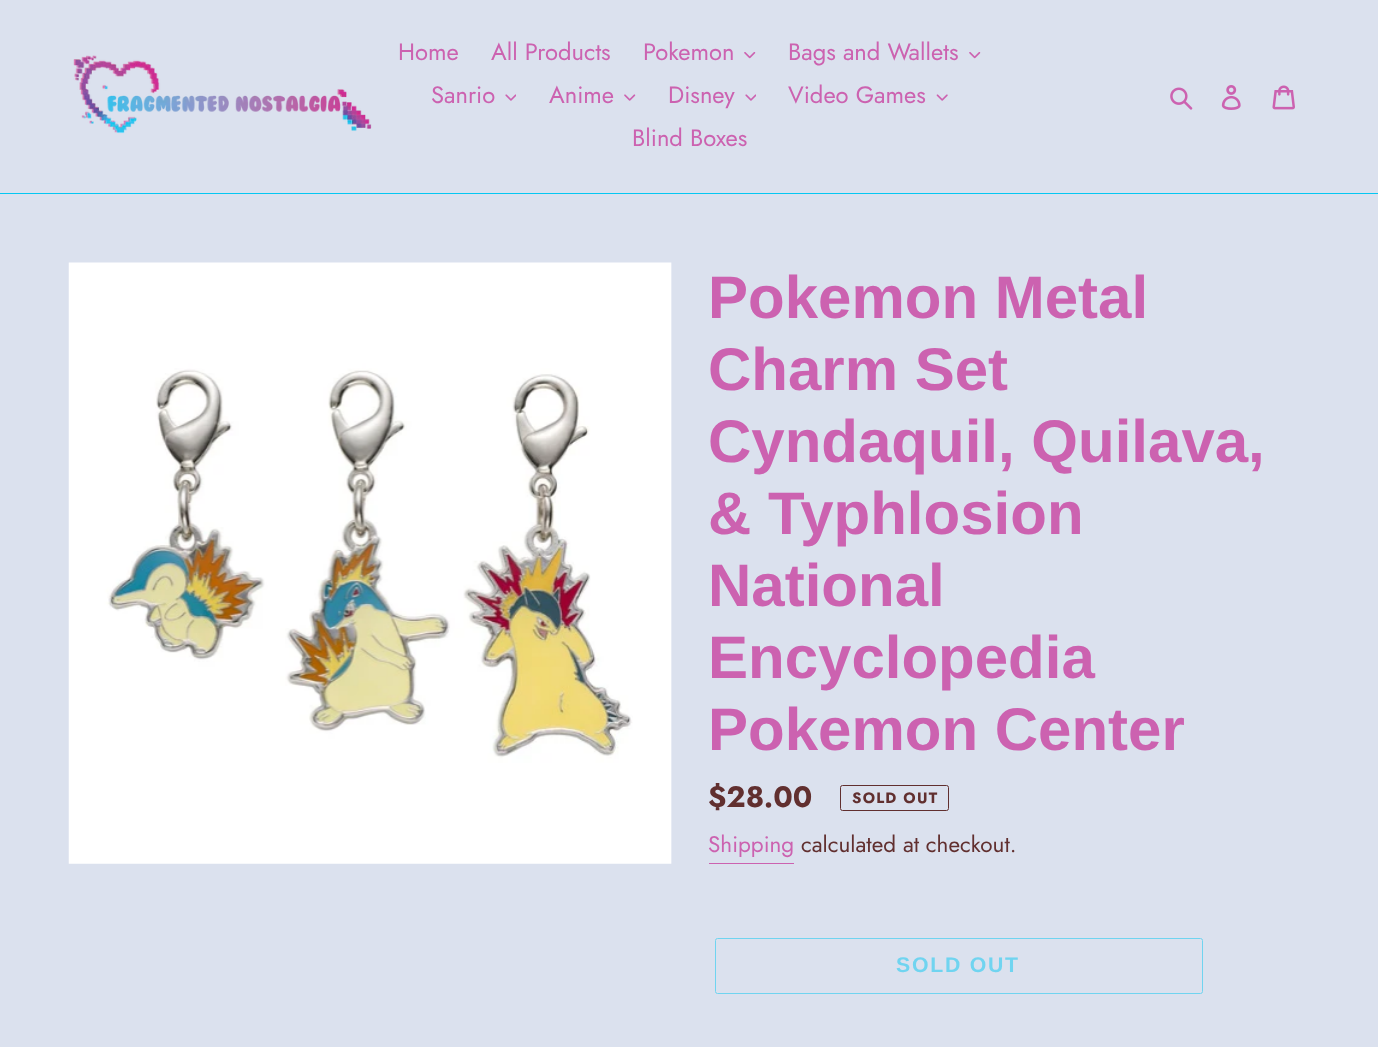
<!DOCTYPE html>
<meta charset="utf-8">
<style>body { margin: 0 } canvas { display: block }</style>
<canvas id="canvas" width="1378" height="1047"></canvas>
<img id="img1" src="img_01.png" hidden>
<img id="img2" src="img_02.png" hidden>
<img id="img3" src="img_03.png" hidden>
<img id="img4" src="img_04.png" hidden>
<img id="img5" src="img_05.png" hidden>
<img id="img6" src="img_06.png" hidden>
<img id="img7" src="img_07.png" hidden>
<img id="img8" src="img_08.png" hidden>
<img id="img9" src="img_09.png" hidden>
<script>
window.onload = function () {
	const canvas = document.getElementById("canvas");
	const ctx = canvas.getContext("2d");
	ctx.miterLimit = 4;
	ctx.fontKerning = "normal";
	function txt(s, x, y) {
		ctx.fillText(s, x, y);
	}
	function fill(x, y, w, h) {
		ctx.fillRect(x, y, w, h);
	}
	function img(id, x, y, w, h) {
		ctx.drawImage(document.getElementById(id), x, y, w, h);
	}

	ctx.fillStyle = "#DBE1EE";
	fill(0, 0, 1378, 1047);
	ctx.fillStyle = "#05C7F2";
	fill(0, 193, 1378, 1);
	img("img1", 73, 55, 299, 79);
	img("img2", 744, 52, 12, 7);
	img("img2", 969, 52, 12, 7);
	img("img3", 505, 94, 11, 7);
	img("img4", 624, 94, 12, 7);
	img("img3", 745, 94, 11, 7);
	img("img5", 936, 94, 12, 7);
	img("img6", 1170, 87, 23, 23);
	img("img7", 1221, 85, 20, 25);
	img("img8", 1272, 85, 23, 25);
	img("img9", 68, 262, 604, 602);
	ctx.beginPath();
	ctx.roundRect(840.5, 785.5, 108, 25, 2);
	ctx.strokeStyle = "#612F2F";
	ctx.stroke();
	ctx.fillStyle = "#CC62B0";
	fill(709, 863, 85, 1);
	ctx.beginPath();
	ctx.roundRect(715.5, 938.5, 487, 55, 2);
	ctx.strokeStyle = "#70D4F0";
	ctx.stroke();
	ctx.font = "23.75px Jost";
	txt("Home", 398, 60);
	txt("All Products", 491, 60);
	txt("Pokemon", 643, 60);
	txt("Bags and Wallets", 788, 60);
	txt("Sanrio", 431, 103);
	txt("Anime", 549, 103);
	txt("Disney", 668, 103);
	txt("Video Games", 788, 103);
	txt("Blind Boxes", 632, 146);
	ctx.font = "bold 60px Liberation Sans";
	txt("Pokemon Metal", 708, 318);
	txt("Charm Set", 708, 390);
	txt("Cyndaquil, Quilava,", 708, 462);
	txt("& Typhlosion", 708, 534);
	txt("National", 708, 606);
	txt("Encyclopedia", 708, 678);
	txt("Pokemon Center", 708, 750);
	ctx.font = "bold 29.5px Jost";
	ctx.fillStyle = "#612F2F";
	txt("$28.00", 708, 807);
	ctx.letterSpacing = "1.25px";
	ctx.font = "bold 15px Jost";
	txt("SOLD OUT", 852, 803);
	ctx.letterSpacing = "0px";
	ctx.font = "22.5px Jost";
	ctx.fillStyle = "#CC62B0";
	txt("Shipping", 708, 852);
	ctx.fillStyle = "#612F2F";
	txt("calculated at checkout.", 801, 852);
	ctx.letterSpacing = "1.75px";
	ctx.font = "bold 21.25px Liberation Sans";
	ctx.fillStyle = "#70D4F0";
	txt("SOLD OUT", 896, 972);
};
</script>
